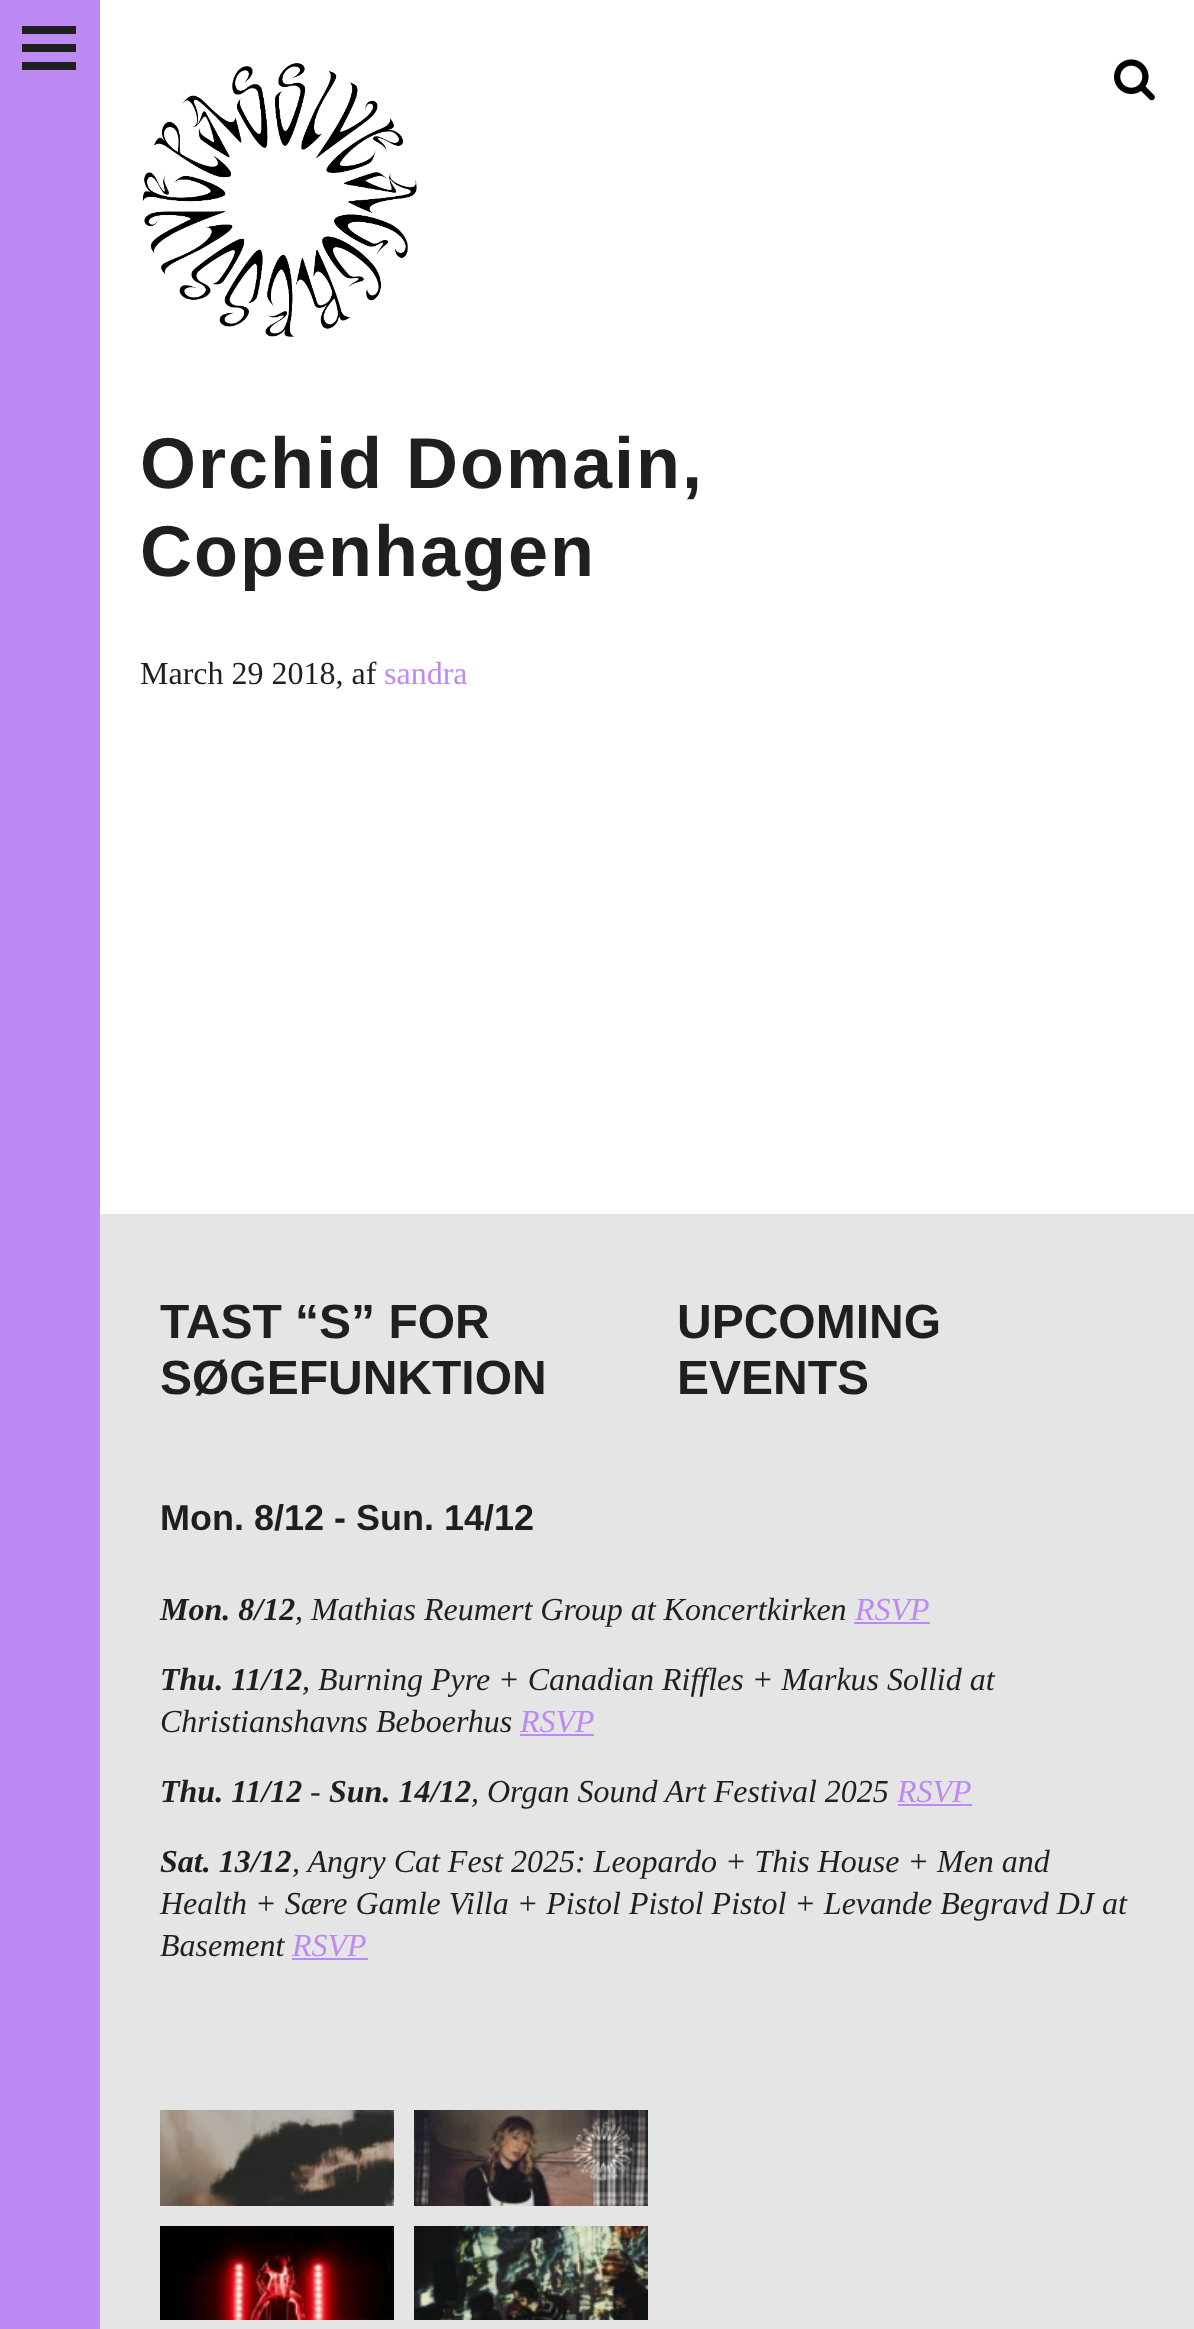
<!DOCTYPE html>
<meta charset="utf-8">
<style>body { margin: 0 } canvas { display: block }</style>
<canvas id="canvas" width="1194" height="2329"></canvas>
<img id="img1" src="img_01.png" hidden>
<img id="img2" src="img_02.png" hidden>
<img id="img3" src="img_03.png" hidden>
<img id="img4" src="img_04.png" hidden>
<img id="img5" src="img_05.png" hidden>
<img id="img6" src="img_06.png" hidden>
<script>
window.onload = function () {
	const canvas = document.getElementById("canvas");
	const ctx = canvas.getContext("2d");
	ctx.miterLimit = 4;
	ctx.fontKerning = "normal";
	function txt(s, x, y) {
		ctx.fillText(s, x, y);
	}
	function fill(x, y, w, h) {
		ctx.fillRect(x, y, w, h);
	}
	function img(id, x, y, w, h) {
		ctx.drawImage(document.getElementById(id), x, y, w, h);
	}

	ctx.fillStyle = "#FFFFFF";
	fill(0, 0, 1194, 2329);
	ctx.fillStyle = "#BD89F2";
	fill(0, 0, 100, 2329);
	ctx.fillStyle = "#1F1F1F";
	fill(22, 44, 54, 8);
	fill(22, 26, 54, 8);
	fill(22, 62, 54, 8);
	img("img1", 142, 63, 275, 274);
	img("img2", 1114, 59, 41, 42);
	ctx.fillStyle = "#E5E5E5";
	fill(100, 1214, 1094, 1115);
	ctx.fillStyle = "#BD89F2";
	fill(854, 1622, 76, 2);
	fill(520, 1734, 74, 2);
	fill(898, 1804, 74, 2);
	fill(292, 1958, 76, 2);
	img("img3", 160, 2110, 234, 96);
	img("img4", 414, 2110, 234, 96);
	img("img5", 160, 2226, 234, 94);
	img("img6", 414, 2226, 234, 94);
	ctx.letterSpacing = "2px";
	ctx.font = "bold 72px Liberation Sans";
	ctx.fillStyle = "#1F1F1F";
	txt("Orchid Domain,", 140, 488);
	txt("Copenhagen", 140, 576);
	ctx.letterSpacing = "0px";
	ctx.font = "32px Liberation Serif";
	txt("March 29 2018, af", 140, 684);
	ctx.fillStyle = "#BD89F2";
	txt("sandra", 384, 684);
	ctx.font = "bold 48px Liberation Sans";
	ctx.fillStyle = "#1F1F1F";
	txt("TAST “S” FOR", 160, 1338);
	txt("SØGEFUNKTION", 160, 1394);
	txt("UPCOMING", 677, 1338);
	txt("EVENTS", 677, 1394);
	ctx.font = "bold 36px Liberation Sans";
	txt("Mon. 8/12 - Sun. 14/12", 160, 1530);
	ctx.font = "italic bold 32px Liberation Serif";
	txt("Mon. 8/12", 160, 1620);
	ctx.font = "italic 32px Liberation Serif";
	txt(", Mathias Reumert Group at Koncertkirken", 295, 1620);
	ctx.fillStyle = "#BD89F2";
	txt("RSVP", 855, 1620);
	ctx.font = "italic bold 32px Liberation Serif";
	ctx.fillStyle = "#1F1F1F";
	txt("Thu. 11/12", 160, 1690);
	ctx.font = "italic 32px Liberation Serif";
	txt(", Burning Pyre + Canadian Riffles + Markus Sollid at", 302, 1690);
	txt("Christianshavns Beboerhus", 160, 1732);
	ctx.fillStyle = "#BD89F2";
	txt("RSVP", 520, 1732);
	ctx.font = "italic bold 32px Liberation Serif";
	ctx.fillStyle = "#1F1F1F";
	txt("Thu. 11/12", 160, 1802);
	ctx.font = "italic 32px Liberation Serif";
	txt("-", 310, 1802);
	ctx.font = "italic bold 32px Liberation Serif";
	txt("Sun. 14/12", 329, 1802);
	ctx.font = "italic 32px Liberation Serif";
	txt(", Organ Sound Art Festival 2025", 471, 1802);
	ctx.fillStyle = "#BD89F2";
	txt("RSVP", 897, 1802);
	ctx.font = "italic bold 32px Liberation Serif";
	ctx.fillStyle = "#1F1F1F";
	txt("Sat. 13/12", 160, 1872);
	ctx.font = "italic 32px Liberation Serif";
	txt(", Angry Cat Fest 2025: Leopardo + This House + Men and", 292, 1872);
	txt("Health + Sære Gamle Villa + Pistol Pistol Pistol + Levande Begravd DJ at", 160, 1914);
	txt("Basement", 160, 1956);
	ctx.fillStyle = "#BD89F2";
	txt("RSVP", 292, 1956);
};
</script>
